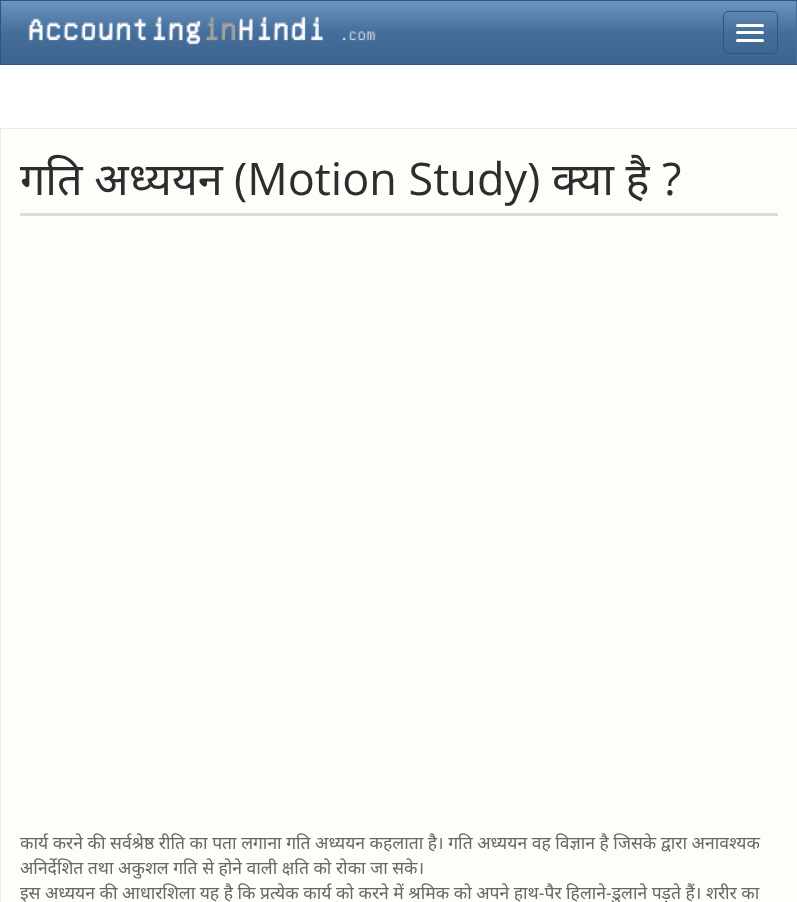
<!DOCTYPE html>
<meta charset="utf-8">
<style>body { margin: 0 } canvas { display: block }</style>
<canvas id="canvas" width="797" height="902"></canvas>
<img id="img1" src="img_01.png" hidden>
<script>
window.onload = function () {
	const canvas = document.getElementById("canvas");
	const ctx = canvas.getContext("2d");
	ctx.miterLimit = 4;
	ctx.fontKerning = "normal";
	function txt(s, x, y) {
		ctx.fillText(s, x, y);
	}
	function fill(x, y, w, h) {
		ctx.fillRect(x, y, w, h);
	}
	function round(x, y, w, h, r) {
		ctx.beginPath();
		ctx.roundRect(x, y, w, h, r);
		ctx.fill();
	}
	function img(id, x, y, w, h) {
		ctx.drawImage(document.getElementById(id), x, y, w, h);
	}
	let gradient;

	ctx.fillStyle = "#FFFFFF";
	fill(0, 0, 797, 902);
	ctx.fillStyle = "#446E9B";
	fill(796, 1, 1, 63);
	gradient = ctx.createLinearGradient(399, 1.2, 399, 64);
	gradient.addColorStop(0, "#6D94BF");
	gradient.addColorStop(0.5, "#446E9B");
	gradient.addColorStop(1, "#3E648D");
	ctx.fillStyle = gradient;
	fill(1, 1, 795, 63);
	ctx.strokeStyle = "#345578";
	ctx.strokeRect(0.5, 0.5, 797, 64);
	img("img1", 28, 16, 348, 29);
	ctx.beginPath();
	ctx.roundRect(723.5, 11.5, 54, 42, 4.5);
	ctx.stroke();
	ctx.fillStyle = "#FFFFFF";
	round(736, 24, 28, 3, 1.5);
	round(736, 31, 28, 3, 1.5);
	round(736, 39, 28, 3, 1.5);
	ctx.fillStyle = "#FFFDFA";
	ctx.beginPath();
	ctx.rect(0.5, 128.5, 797, 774);
	ctx.fill();
	ctx.strokeStyle = "#EAEAEA";
	ctx.stroke();
	ctx.fillStyle = "#DDDDDD";
	fill(20, 213, 758, 3);
	ctx.font = "45px Noto Sans";
	ctx.fillStyle = "#2D2D2D";
	txt("गति अध्ययन", 20, 195);
	ctx.font = "45px Open Sans";
	txt("(Motion Study)", 234, 195);
	ctx.font = "45px Noto Sans";
	txt("क्या है", 552, 195);
	ctx.font = "45px Open Sans";
	txt("?", 662, 195);
	ctx.font = "17.5px Noto Sans";
	ctx.fillStyle = "#666666";
	txt("कार्य करने की सर्वश्रेष्ठ रीति का पता लगाना गति अध्ययन कहलाता है। गति अध्ययन वह विज्ञान है जिसके द्वारा अनावश्यक", 20, 849);
	txt("अनिर्देशित तथा अकुशल गति से होने वाली क्षति को रोका जा सके।", 20, 874);
	txt("इस अध्ययन की आधारशिला यह है कि प्रत्येक कार्य को करने में श्रमिक को अपने हाथ-पैर हिलाने-डुलाने पड़ते हैं। शरीर का", 20, 899);
};
</script>
